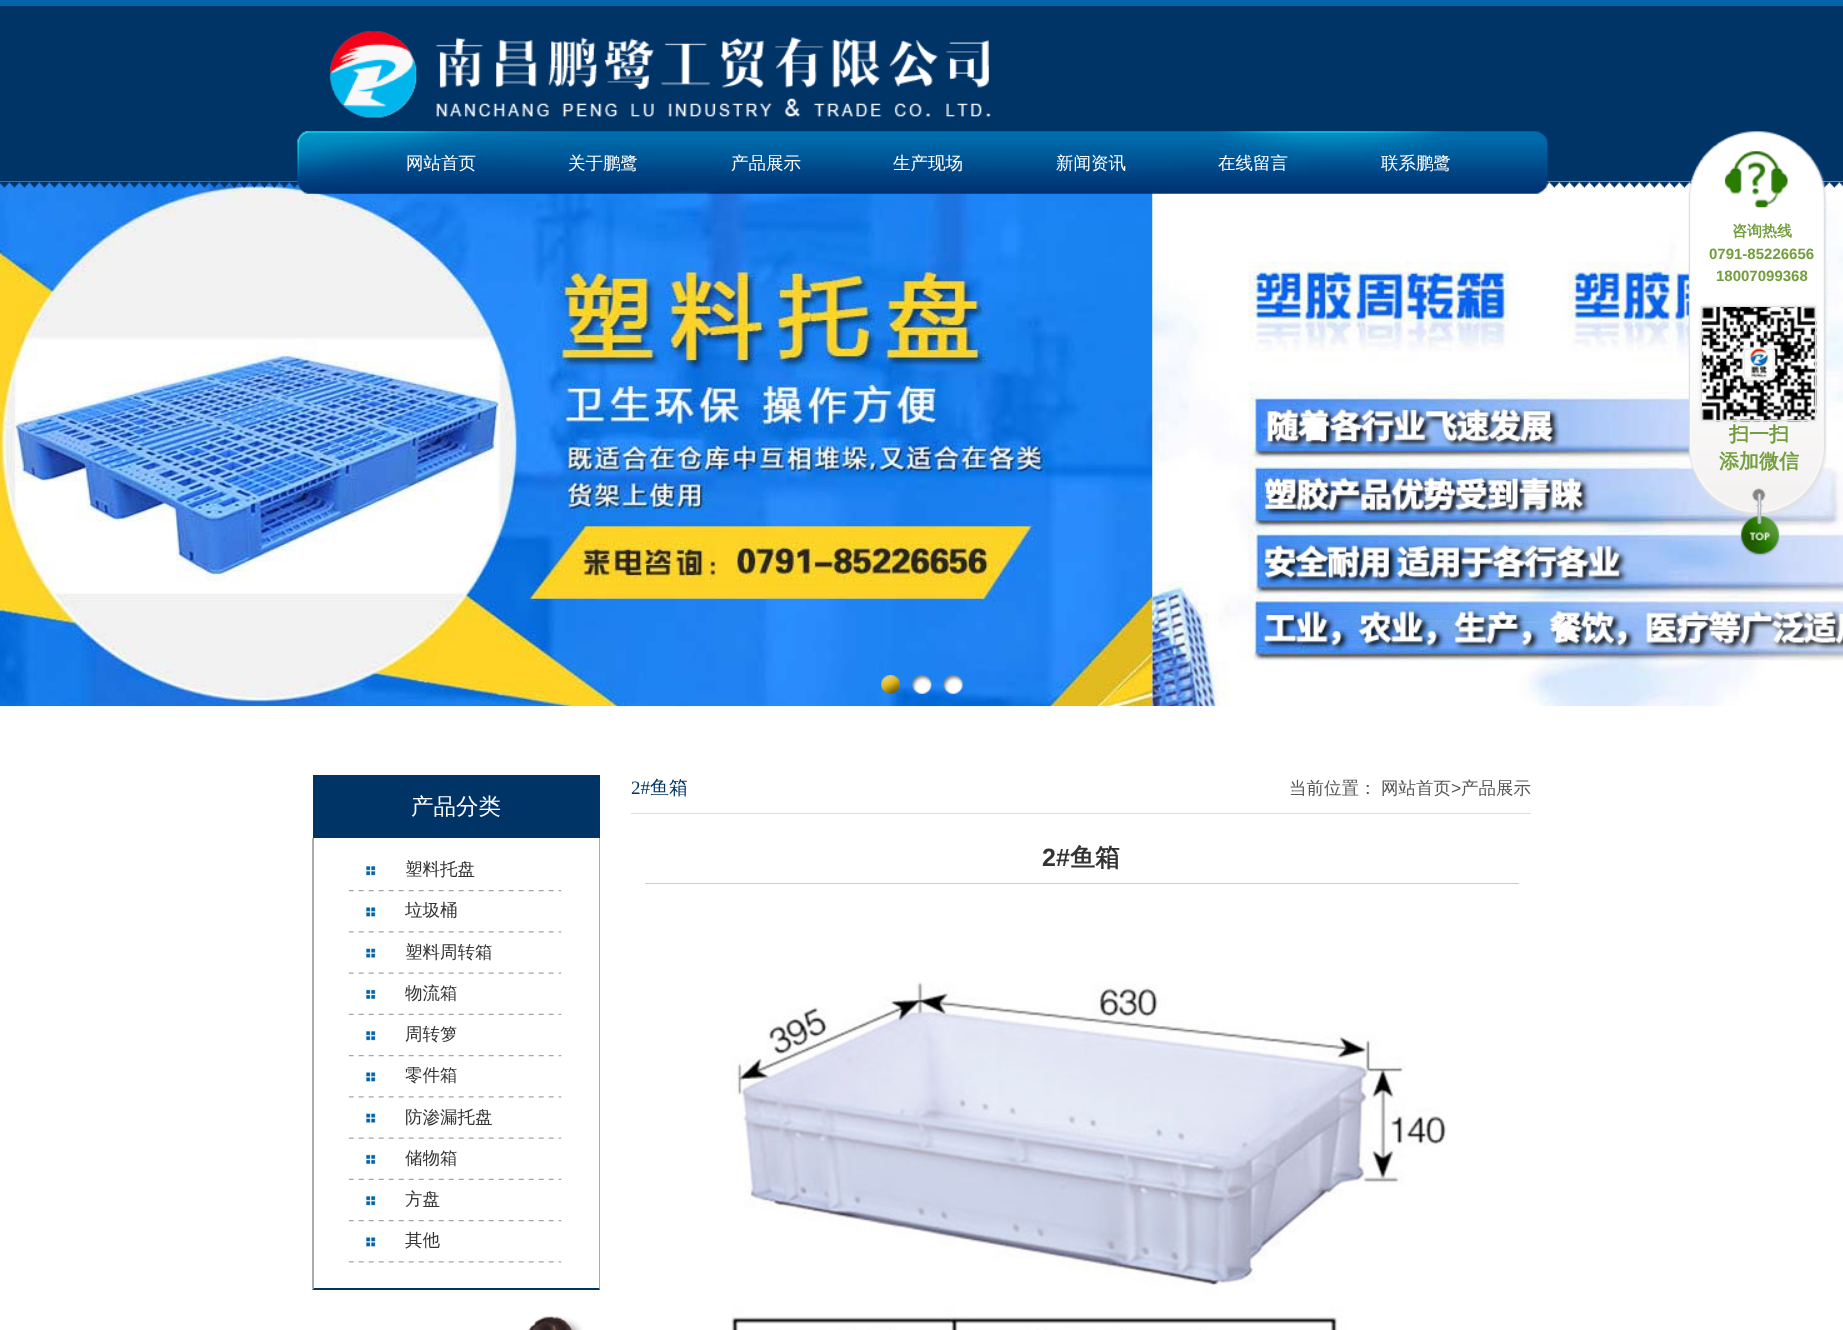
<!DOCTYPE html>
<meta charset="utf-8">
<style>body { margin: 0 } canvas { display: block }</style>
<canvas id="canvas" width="1843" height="1330"></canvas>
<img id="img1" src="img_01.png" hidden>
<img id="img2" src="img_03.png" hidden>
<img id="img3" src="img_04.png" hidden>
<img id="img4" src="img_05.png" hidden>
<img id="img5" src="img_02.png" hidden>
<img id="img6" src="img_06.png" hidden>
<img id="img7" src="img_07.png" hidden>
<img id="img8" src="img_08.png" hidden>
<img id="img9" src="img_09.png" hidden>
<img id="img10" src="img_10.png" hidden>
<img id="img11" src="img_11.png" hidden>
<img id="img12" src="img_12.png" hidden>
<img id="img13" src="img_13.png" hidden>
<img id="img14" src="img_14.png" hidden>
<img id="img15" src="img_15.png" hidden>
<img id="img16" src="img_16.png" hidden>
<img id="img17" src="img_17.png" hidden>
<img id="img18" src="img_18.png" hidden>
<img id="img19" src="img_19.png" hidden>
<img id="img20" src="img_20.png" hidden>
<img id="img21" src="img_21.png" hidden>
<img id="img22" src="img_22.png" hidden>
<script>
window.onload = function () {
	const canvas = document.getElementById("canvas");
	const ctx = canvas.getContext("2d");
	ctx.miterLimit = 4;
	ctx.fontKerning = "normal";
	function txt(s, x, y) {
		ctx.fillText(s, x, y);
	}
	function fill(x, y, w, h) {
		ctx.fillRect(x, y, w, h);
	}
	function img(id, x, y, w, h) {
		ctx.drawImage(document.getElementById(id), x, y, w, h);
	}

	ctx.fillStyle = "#FFFFFF";
	fill(0, 0, 1843, 1330);
	ctx.fillStyle = "#003467";
	fill(0, 6, 1843, 175);
	ctx.fillStyle = "#0066A7";
	fill(0, 0, 1843, 6);
	img("img1", 329, 31, 662, 87);
	img("img2", 0, 181, 1153, 526);
	img("img3", 1152, 181, 691, 526);
	img("img4", 0, 181, 1843, 7);
	img("img5", 297, 131, 1251, 63);
	img("img6", 881, 675, 19, 19);
	img("img7", 912, 675, 20, 19);
	img("img8", 943, 675, 20, 19);
	img("img9", 1688, 131, 139, 77);
	img("img10", 1688, 207, 139, 310);
	ctx.fillStyle = "rgba(0, 0, 0, 0.1)";
	ctx.filter = "blur(2px)";
	ctx.beginPath();
	ctx.rect(1701, 306, 115, 115);
	ctx.fill();
	ctx.filter = "none";
	img("img11", 1701, 306, 116, 116);
	ctx.strokeStyle = "#DEDEDE";
	ctx.strokeRect(1701.5, 306.5, 114, 114);
	img("img12", 1740, 493, 40, 63);
	ctx.fillStyle = "#003467";
	fill(313, 775, 287, 63);
	ctx.fillStyle = "#ACACAC";
	ctx.beginPath();
	ctx.moveTo(600, 838);
	ctx.lineTo(600, 1290);
	ctx.lineTo(599, 1288);
	ctx.lineTo(599, 838);
	ctx.closePath();
	ctx.fill();
	ctx.fillStyle = "#003467";
	ctx.beginPath();
	ctx.moveTo(600, 1290);
	ctx.lineTo(312, 1290);
	ctx.lineTo(314, 1288);
	ctx.lineTo(599, 1288);
	ctx.closePath();
	ctx.fill();
	ctx.fillStyle = "#ACACAC";
	ctx.beginPath();
	ctx.moveTo(312, 1290);
	ctx.lineTo(312, 838);
	ctx.lineTo(314, 838);
	ctx.lineTo(314, 1288);
	ctx.closePath();
	ctx.fill();
	img("img13", 348, 890, 214, 2);
	img("img14", 366, 866, 10, 10);
	img("img15", 348, 931, 214, 2);
	img("img16", 366, 907, 10, 10);
	img("img17", 348, 972, 214, 2);
	img("img18", 366, 948, 10, 10);
	img("img19", 348, 1013, 214, 2);
	img("img20", 366, 989, 10, 10);
	img("img13", 348, 1055, 214, 2);
	img("img14", 366, 1031, 10, 10);
	img("img15", 348, 1096, 214, 2);
	img("img16", 366, 1072, 10, 10);
	img("img17", 348, 1137, 214, 2);
	img("img18", 366, 1113, 10, 10);
	img("img19", 348, 1178, 214, 2);
	img("img20", 366, 1154, 10, 10);
	img("img13", 348, 1220, 214, 2);
	img("img14", 366, 1196, 10, 10);
	img("img15", 348, 1261, 214, 2);
	img("img16", 366, 1237, 10, 10);
	img("img21", 527, 1316, 56, 14);
	ctx.fillStyle = "#DDDDDD";
	fill(631, 813, 900, 1);
	ctx.fillStyle = "#CCCCCC";
	fill(645, 883, 874, 1);
	img("img22", 731, 982, 716, 348);
	ctx.font = "500 17.5px WenQuanYi Zen Hei";
	ctx.fillStyle = "#FFFFFF";
	txt("网站首页", 406, 169);
	txt("关于鹏鹭", 568, 169);
	txt("产品展示", 731, 169);
	txt("生产现场", 893, 169);
	txt("新闻资讯", 1056, 169);
	txt("在线留言", 1218, 169);
	txt("联系鹏鹭", 1381, 169);
	ctx.font = "bold 15px WenQuanYi Zen Hei";
	ctx.fillStyle = "#729E3D";
	txt("咨询热线", 1732, 236);
	ctx.font = "bold 15px Liberation Sans";
	txt("0791-85226656", 1709, 259);
	txt("18007099368", 1716, 281);
	ctx.font = "bold 20px WenQuanYi Zen Hei";
	txt("扫一扫", 1729, 441);
	txt("添加微信", 1719, 468);
	ctx.font = "500 22.5px WenQuanYi Zen Hei";
	ctx.fillStyle = "#FFFFFF";
	txt("产品分类", 411, 814);
	ctx.font = "500 17.5px WenQuanYi Zen Hei";
	ctx.fillStyle = "#333333";
	txt("塑料托盘", 405, 875);
	txt("垃圾桶", 405, 916);
	txt("塑料周转箱", 405, 958);
	txt("物流箱", 405, 999);
	txt("周转箩", 405, 1040);
	txt("零件箱", 405, 1081);
	txt("防渗漏托盘", 405, 1123);
	txt("储物箱", 405, 1164);
	txt("方盘", 405, 1205);
	txt("其他", 405, 1246);
	ctx.font = "19px Liberation Serif";
	ctx.fillStyle = "#003467";
	txt("2#", 631, 794);
	ctx.font = "500 19px WenQuanYi Zen Hei";
	txt("鱼箱", 650, 794);
	ctx.font = "500 17.5px WenQuanYi Zen Hei";
	ctx.fillStyle = "#555555";
	txt("当前位置：", 1289, 794);
	txt("网站首页", 1381, 794);
	ctx.font = "17.5px Liberation Sans";
	txt(">", 1451, 794);
	ctx.font = "500 17.5px WenQuanYi Zen Hei";
	txt("产品展示", 1461, 794);
	ctx.font = "bold 25px Liberation Sans";
	ctx.fillStyle = "#333333";
	txt("2#", 1042, 866);
	ctx.font = "bold 25px WenQuanYi Zen Hei";
	txt("鱼箱", 1070, 866);
};
</script>
